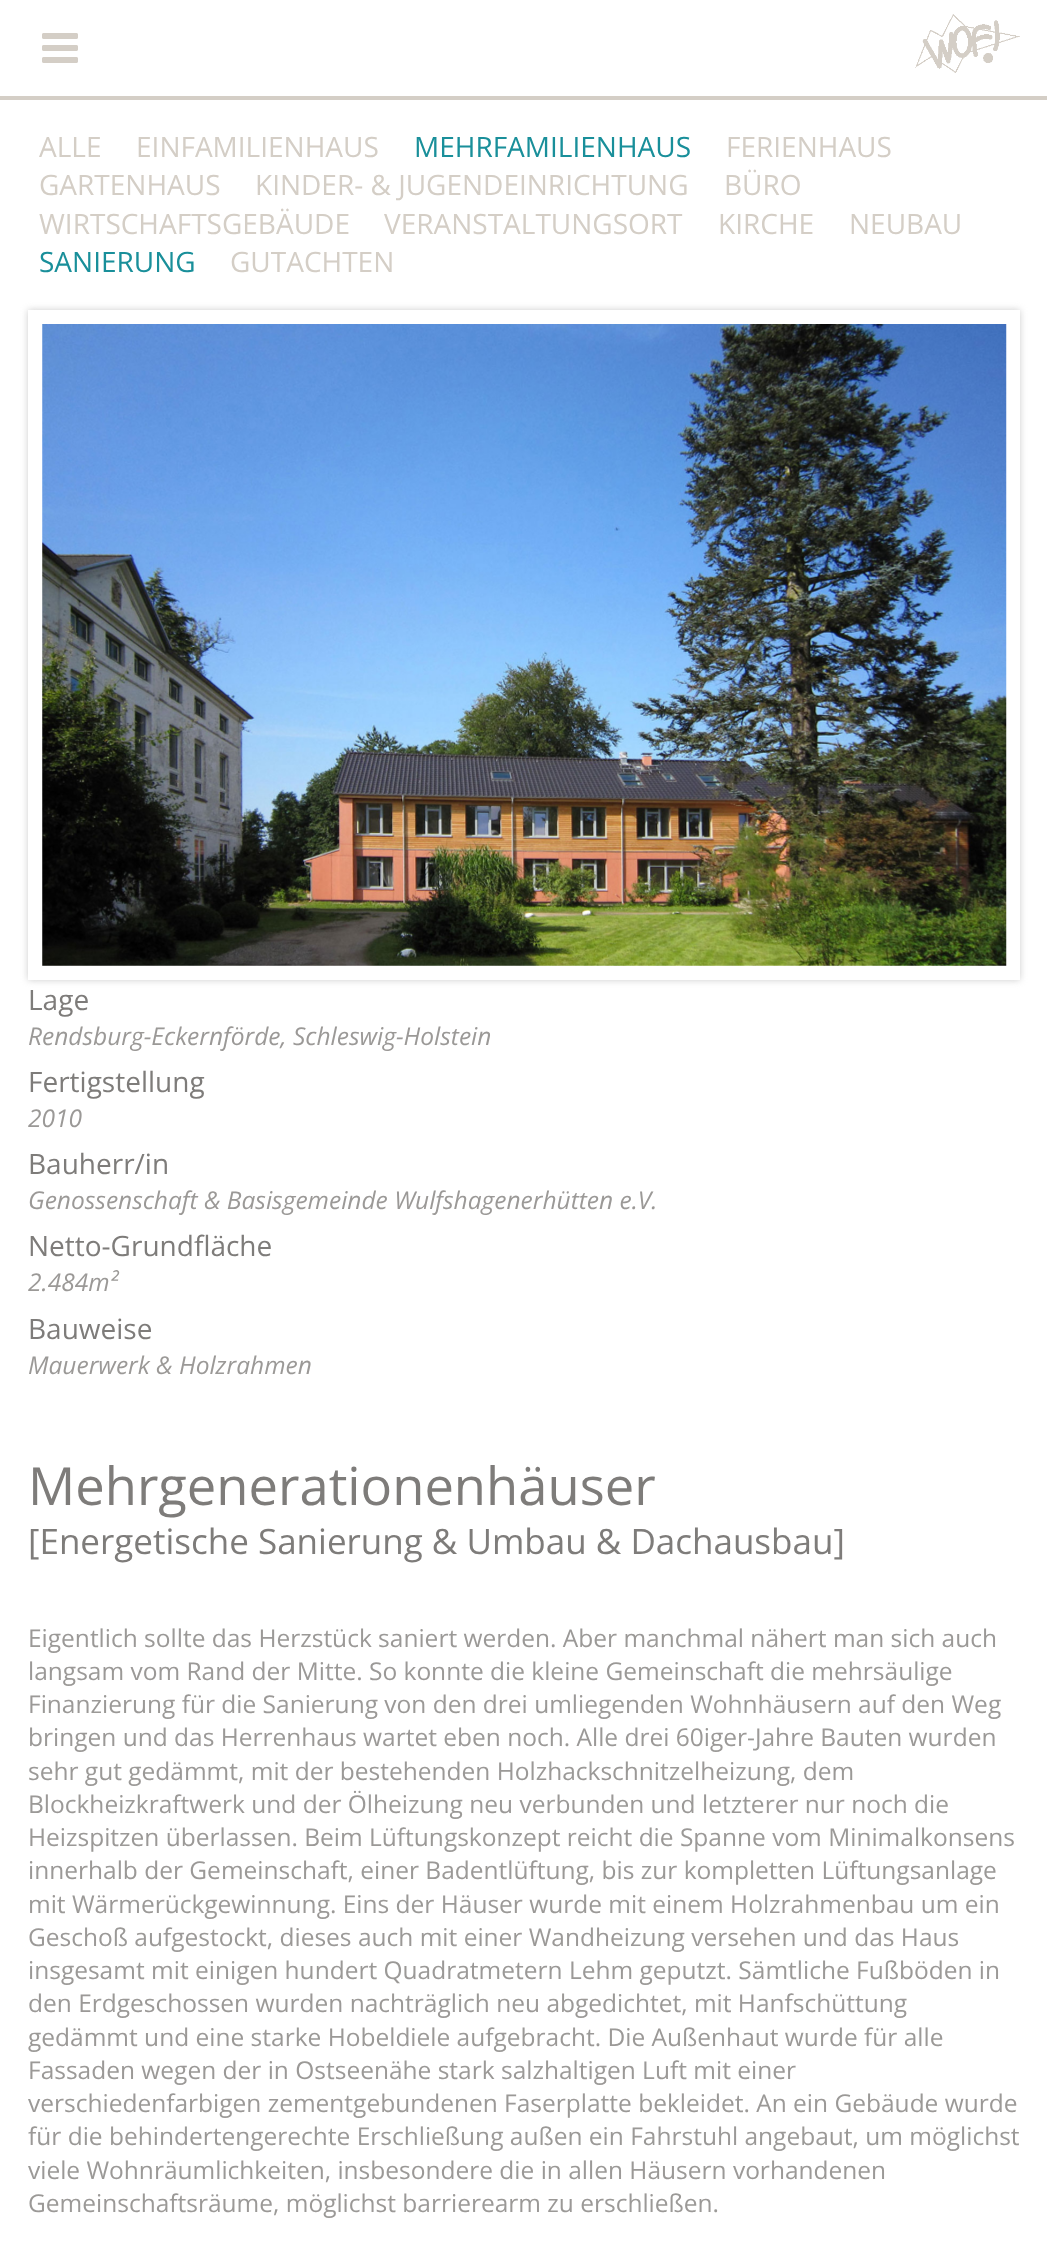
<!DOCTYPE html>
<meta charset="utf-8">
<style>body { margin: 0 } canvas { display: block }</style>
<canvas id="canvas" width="1047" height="2248"></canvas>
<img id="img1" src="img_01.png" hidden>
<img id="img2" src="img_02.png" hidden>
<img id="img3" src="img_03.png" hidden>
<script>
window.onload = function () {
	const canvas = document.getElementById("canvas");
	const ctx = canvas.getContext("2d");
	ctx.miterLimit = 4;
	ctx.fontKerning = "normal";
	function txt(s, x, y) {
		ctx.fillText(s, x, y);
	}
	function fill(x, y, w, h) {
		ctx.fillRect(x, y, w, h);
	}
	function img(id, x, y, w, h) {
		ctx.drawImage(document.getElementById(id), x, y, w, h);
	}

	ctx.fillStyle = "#FFFFFF";
	fill(0, 0, 1047, 2248);
	ctx.fillStyle = "#D4CEC6";
	fill(0, 96, 1047, 4);
	img("img1", 42, 33, 36, 30);
	img("img2", 915, 14, 105, 59);
	ctx.save();
	ctx.beginPath();
	ctx.moveTo(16, 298);
	ctx.lineTo(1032, 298);
	ctx.lineTo(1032, 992);
	ctx.lineTo(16, 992);
	ctx.closePath();
	ctx.moveTo(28, 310);
	ctx.lineTo(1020, 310);
	ctx.lineTo(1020, 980);
	ctx.lineTo(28, 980);
	ctx.closePath();
	ctx.clip("evenodd");
	ctx.fillStyle = "#CCCCCC";
	ctx.filter = "blur(3.5px)";
	ctx.beginPath();
	ctx.rect(28, 310, 992, 670);
	ctx.fill();
	ctx.filter = "none";
	ctx.restore();
	img("img3", 42, 324, 965, 642);
	ctx.font = "28px Open Sans";
	txt("ALLE", 39, 157);
	txt("EINFAMILIENHAUS", 136, 157);
	ctx.fillStyle = "#198F9A";
	txt("MEHRFAMILIENHAUS", 414, 157);
	ctx.fillStyle = "#D4CEC6";
	txt("FERIENHAUS", 726, 157);
	txt("GARTENHAUS", 39, 195);
	txt("KINDER- & JUGENDEINRICHTUNG", 255, 195);
	txt("BÜRO", 724, 195);
	txt("WIRTSCHAFTSGEBÄUDE", 39, 234);
	txt("VERANSTALTUNGSORT", 384, 234);
	txt("KIRCHE", 718, 234);
	txt("NEUBAU", 849, 234);
	ctx.fillStyle = "#198F9A";
	txt("SANIERUNG", 39, 272);
	ctx.fillStyle = "#D4CEC6";
	txt("GUTACHTEN", 230, 272);
	ctx.fillStyle = "#7E7C7A";
	txt("Lage", 28, 1010);
	ctx.font = "italic 24.5px Open Sans";
	ctx.fillStyle = "#9B9997";
	txt("Rendsburg-Eckernförde, Schleswig-Holstein", 28, 1045);
	ctx.font = "28px Open Sans";
	ctx.fillStyle = "#7E7C7A";
	txt("Fertigstellung", 28, 1092);
	ctx.font = "italic 24.5px Open Sans";
	ctx.fillStyle = "#9B9997";
	txt("2010", 28, 1127);
	ctx.font = "28px Open Sans";
	ctx.fillStyle = "#7E7C7A";
	txt("Bauherr/in", 28, 1174);
	ctx.font = "italic 24.5px Open Sans";
	ctx.fillStyle = "#9B9997";
	txt("Genossenschaft & Basisgemeinde Wulfshagenerhütten e.V.", 28, 1209);
	ctx.font = "28px Open Sans";
	ctx.fillStyle = "#7E7C7A";
	txt("Netto-Grundfläche", 28, 1256);
	ctx.font = "italic 24.5px Open Sans";
	ctx.fillStyle = "#9B9997";
	txt("2.484m²", 28, 1291);
	ctx.font = "28px Open Sans";
	ctx.fillStyle = "#7E7C7A";
	txt("Bauweise", 28, 1339);
	ctx.font = "italic 24.5px Open Sans";
	ctx.fillStyle = "#9B9997";
	txt("Mauerwerk & Holzrahmen", 28, 1374);
	ctx.font = "52.5px Open Sans";
	ctx.fillStyle = "#7E7C7A";
	txt("Mehrgenerationenhäuser", 28, 1505);
	ctx.font = "35px Open Sans";
	txt("[Energetische Sanierung & Umbau & Dachausbau]", 28, 1554);
	ctx.font = "24.5px Open Sans";
	ctx.fillStyle = "#9B9997";
	txt("Eigentlich sollte das Herzstück saniert werden. Aber manchmal nähert man sich auch", 28, 1647);
	txt("langsam vom Rand der Mitte. So konnte die kleine Gemeinschaft die mehrsäulige", 28, 1680);
	txt("Finanzierung für die Sanierung von den drei umliegenden Wohnhäusern auf den Weg", 28, 1713);
	txt("bringen und das Herrenhaus wartet eben noch. Alle drei 60iger-Jahre Bauten wurden", 28, 1746);
	txt("sehr gut gedämmt, mit der bestehenden Holzhackschnitzelheizung, dem", 28, 1780);
	txt("Blockheizkraftwerk und der Ölheizung neu verbunden und letzterer nur noch die", 28, 1813);
	txt("Heizspitzen überlassen. Beim Lüftungskonzept reicht die Spanne vom Minimalkonsens", 28, 1846);
	txt("innerhalb der Gemeinschaft, einer Badentlüftung, bis zur kompletten Lüftungsanlage", 28, 1879);
	txt("mit Wärmerückgewinnung. Eins der Häuser wurde mit einem Holzrahmenbau um ein", 28, 1913);
	txt("Geschoß aufgestockt, dieses auch mit einer Wandheizung versehen und das Haus", 28, 1946);
	txt("insgesamt mit einigen hundert Quadratmetern Lehm geputzt. Sämtliche Fußböden in", 28, 1979);
	txt("den Erdgeschossen wurden nachträglich neu abgedichtet, mit Hanfschüttung", 28, 2012);
	txt("gedämmt und eine starke Hobeldiele aufgebracht. Die Außenhaut wurde für alle", 28, 2046);
	txt("Fassaden wegen der in Ostseenähe stark salzhaltigen Luft mit einer", 28, 2079);
	txt("verschiedenfarbigen zementgebundenen Faserplatte bekleidet. An ein Gebäude wurde", 28, 2112);
	txt("für die behindertengerechte Erschließung außen ein Fahrstuhl angebaut, um möglichst", 28, 2145);
	txt("viele Wohnräumlichkeiten, insbesondere die in allen Häusern vorhandenen", 28, 2179);
	txt("Gemeinschaftsräume, möglichst barrierearm zu erschließen.", 28, 2212);
};
</script>
